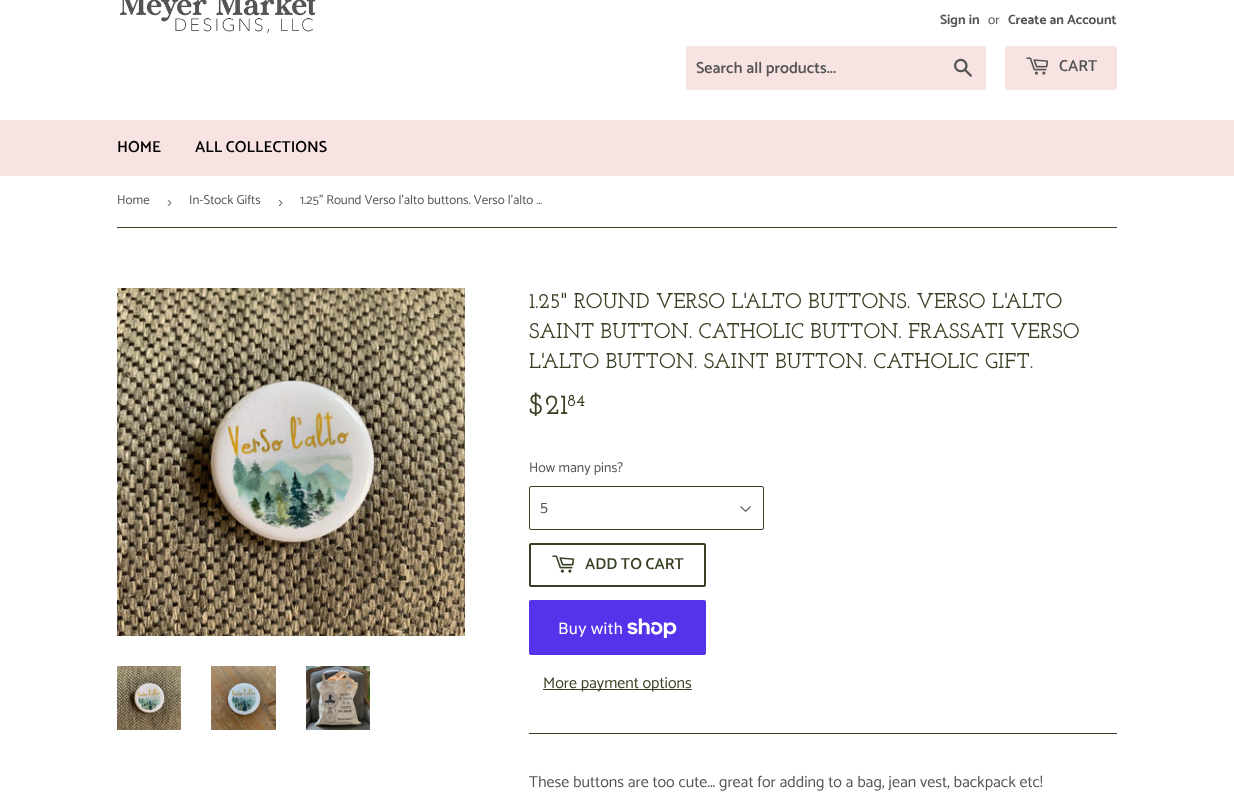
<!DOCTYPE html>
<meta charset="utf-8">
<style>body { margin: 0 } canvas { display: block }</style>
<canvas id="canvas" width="1234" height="807"></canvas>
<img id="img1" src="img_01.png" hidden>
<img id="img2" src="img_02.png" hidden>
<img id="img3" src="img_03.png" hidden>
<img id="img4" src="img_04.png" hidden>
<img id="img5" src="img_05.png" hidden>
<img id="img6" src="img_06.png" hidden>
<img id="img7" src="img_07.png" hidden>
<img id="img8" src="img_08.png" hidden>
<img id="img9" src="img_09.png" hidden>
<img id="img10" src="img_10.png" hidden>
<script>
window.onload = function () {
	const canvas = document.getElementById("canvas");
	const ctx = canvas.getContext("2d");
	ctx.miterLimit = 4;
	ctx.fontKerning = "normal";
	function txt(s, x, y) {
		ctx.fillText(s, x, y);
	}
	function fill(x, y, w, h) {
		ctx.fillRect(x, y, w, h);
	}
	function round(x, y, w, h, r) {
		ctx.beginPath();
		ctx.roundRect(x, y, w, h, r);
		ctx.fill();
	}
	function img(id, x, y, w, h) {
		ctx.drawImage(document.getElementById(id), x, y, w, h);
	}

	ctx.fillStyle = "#FFFFFF";
	fill(0, 0, 1234, 807);
	img("img1", 120, 0, 196, 34);
	ctx.fillStyle = "#F7E3E2";
	round(686, 46, 300, 44, 2);
	img("img2", 954, 58, 18, 19);
	round(1005, 46, 112, 44, 2);
	img("img3", 1026, 57, 23, 18);
	fill(0, 120, 1234, 56);
	ctx.fillStyle = "#364022";
	fill(117, 227, 1000, 1);
	img("img4", 117, 288, 348, 348);
	img("img5", 117, 666, 64, 64);
	img("img6", 211, 666, 65, 64);
	img("img7", 306, 666, 64, 64);
	img("img8", 740, 506, 11, 6);
	ctx.beginPath();
	ctx.roundRect(529.5, 486.5, 234, 43, 1.5);
	ctx.strokeStyle = "#364022";
	ctx.stroke();
	ctx.beginPath();
	ctx.roundRect(530, 544, 175, 42, 1);
	ctx.lineWidth = 2;
	ctx.stroke();
	img("img9", 552, 555, 23, 18);
	ctx.fillStyle = "#5433EB";
	round(529, 600, 177, 55, 2);
	img("img10", 627, 618, 50, 20);
	ctx.fillStyle = "#364022";
	fill(543, 689, 149, 1);
	fill(529, 733, 588, 1);
	ctx.font = "bold 13.5px Catamaran";
	ctx.fillStyle = "#545454";
	txt("Sign in", 940, 24);
	ctx.font = "13.5px Catamaran";
	txt("or", 988, 24);
	ctx.font = "bold 13.5px Catamaran";
	txt("Create an Account", 1008, 24);
	ctx.font = "600 16px Catamaran";
	txt("Search all products...", 696, 73);
	txt("CART", 1059, 71);
	ctx.fillStyle = "#000000";
	txt("HOME", 117, 152);
	txt("ALL COLLECTIONS", 195, 152);
	ctx.font = "13px Catamaran";
	ctx.fillStyle = "#545454";
	txt("Home", 117, 204);
	ctx.font = "15px Liberation Sans";
	ctx.fillStyle = "#767676";
	txt("›", 167, 207);
	ctx.font = "13px Catamaran";
	ctx.fillStyle = "#545454";
	txt("In-Stock Gifts", 189, 204);
	ctx.font = "15px Liberation Sans";
	ctx.fillStyle = "#767676";
	txt("›", 278, 207);
	ctx.font = "13px Catamaran";
	ctx.fillStyle = "#545454";
	txt("1.25\" Round Verso l'alto buttons. Verso l'alto …", 300, 204);
	ctx.font = "600 21.3px Josefin Slab";
	ctx.fillStyle = "#364022";
	txt("1.25\" ROUND VERSO L'ALTO BUTTONS. VERSO L'ALTO", 529, 308);
	txt("SAINT BUTTON. CATHOLIC BUTTON. FRASSATI VERSO", 529, 338);
	txt("L'ALTO BUTTON. SAINT BUTTON. CATHOLIC GIFT.", 529, 368);
	ctx.font = "600 28px Josefin Slab";
	txt("$21", 529, 414);
	ctx.font = "600 17px Josefin Slab";
	txt("84", 567, 406);
	ctx.font = "14px Catamaran";
	ctx.fillStyle = "#545454";
	txt("How many pins?", 529, 472);
	ctx.font = "16px Catamaran";
	txt("5", 540, 512);
	ctx.font = "600 16px Catamaran";
	ctx.fillStyle = "#364022";
	txt("ADD TO CART", 585, 569);
	ctx.font = "16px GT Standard";
	ctx.fillStyle = "#FFFFFF";
	txt("Buy with", 558, 634);
	ctx.font = "16px Catamaran";
	ctx.fillStyle = "#364022";
	txt("More payment options", 543, 688);
	ctx.fillStyle = "#545454";
	txt("These buttons are too cute... great for adding to a bag, jean vest, backpack etc!", 529, 787);
};
</script>
